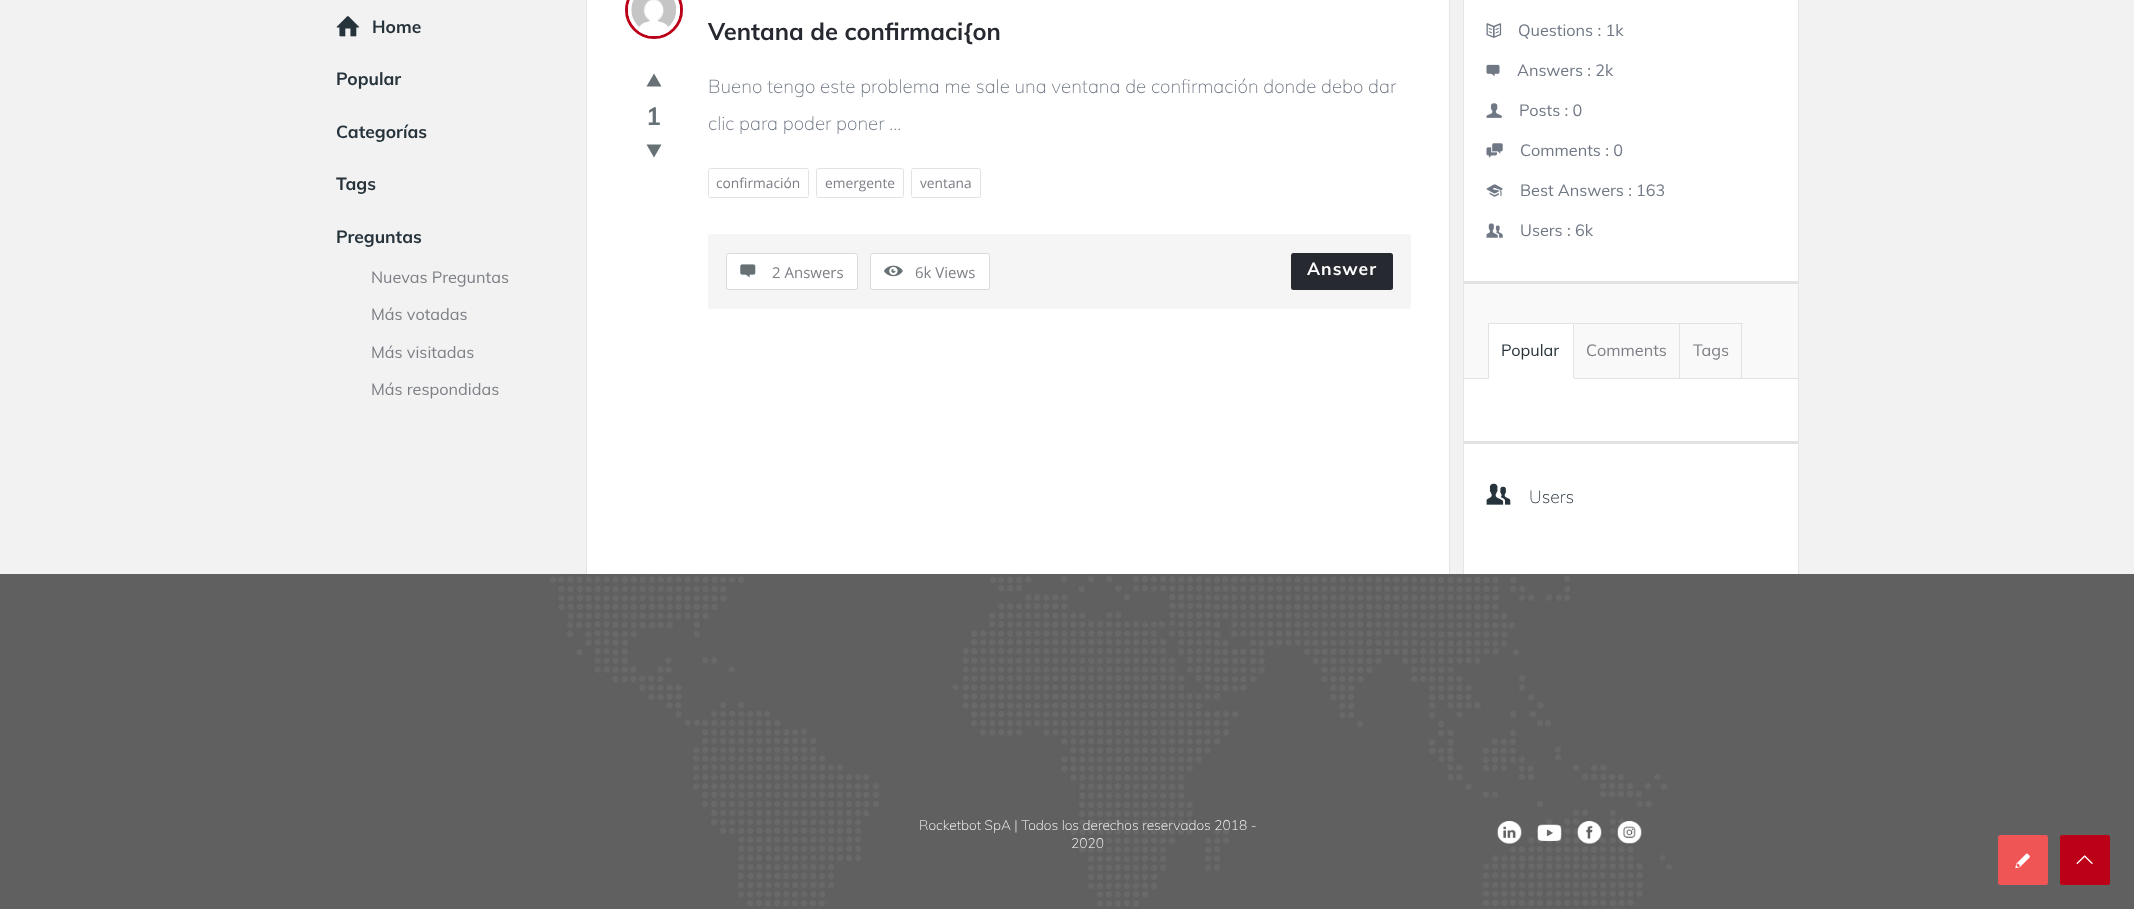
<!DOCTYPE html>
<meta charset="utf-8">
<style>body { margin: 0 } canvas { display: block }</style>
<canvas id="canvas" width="2134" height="909"></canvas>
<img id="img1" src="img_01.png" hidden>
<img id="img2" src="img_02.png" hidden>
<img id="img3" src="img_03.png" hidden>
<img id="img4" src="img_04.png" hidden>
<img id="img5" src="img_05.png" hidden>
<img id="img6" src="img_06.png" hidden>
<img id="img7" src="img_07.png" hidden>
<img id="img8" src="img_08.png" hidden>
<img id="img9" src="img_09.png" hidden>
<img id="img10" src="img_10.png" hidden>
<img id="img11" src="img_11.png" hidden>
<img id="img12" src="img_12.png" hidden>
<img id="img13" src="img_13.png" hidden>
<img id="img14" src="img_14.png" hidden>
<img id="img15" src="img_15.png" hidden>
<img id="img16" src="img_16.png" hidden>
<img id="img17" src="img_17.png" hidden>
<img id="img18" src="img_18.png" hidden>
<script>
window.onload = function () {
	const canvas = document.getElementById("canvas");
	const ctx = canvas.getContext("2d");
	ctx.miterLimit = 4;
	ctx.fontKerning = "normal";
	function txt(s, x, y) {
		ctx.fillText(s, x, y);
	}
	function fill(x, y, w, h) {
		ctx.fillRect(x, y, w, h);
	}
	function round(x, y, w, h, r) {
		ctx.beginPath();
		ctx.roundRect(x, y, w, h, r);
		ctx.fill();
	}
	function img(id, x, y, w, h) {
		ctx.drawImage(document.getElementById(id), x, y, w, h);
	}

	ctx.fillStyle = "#606060";
	fill(0, 0, 2134, 909);
	ctx.fillStyle = "#F2F2F2";
	fill(0, 0, 2134, 574);
	img("img1", 336, 16, 24, 21);
	ctx.fillStyle = "#FFFFFF";
	fill(587, 0, 862, 574);
	ctx.fillStyle = "#E4E5E6";
	fill(1449, 0, 1, 574);
	fill(586, 0, 1, 574);
	ctx.fillStyle = "#FFFFFF";
	fill(1464, 0, 334, 574);
	ctx.fillStyle = "#E4E5E6";
	fill(1798, 0, 1, 574);
	fill(1463, 0, 1, 574);
	ctx.beginPath();
	ctx.arc(654, 10, 27.5, 0, Math.PI * 2);
	ctx.strokeStyle = "#BC0018";
	ctx.lineWidth = 3;
	ctx.stroke();
	ctx.beginPath();
	ctx.arc(654, 10, 24, 0, Math.PI * 2);
	ctx.strokeStyle = "#FFFFFF";
	ctx.lineWidth = 4;
	ctx.stroke();
	img("img2", 631, 0, 45, 27);
	ctx.fillStyle = "#677075";
	ctx.beginPath();
	ctx.moveTo(646.5, 86.5);
	ctx.lineTo(654, 73.5);
	ctx.lineTo(661.5, 86.5);
	ctx.closePath();
	ctx.fill();
	ctx.beginPath();
	ctx.moveTo(661.5, 144.5);
	ctx.lineTo(654, 157.5);
	ctx.lineTo(646.5, 144.5);
	ctx.closePath();
	ctx.fill();
	ctx.beginPath();
	ctx.roundRect(708.5, 168.5, 100, 29, 2);
	ctx.strokeStyle = "#E1E3E3";
	ctx.lineWidth = 1;
	ctx.stroke();
	ctx.beginPath();
	ctx.roundRect(816.5, 168.5, 87, 29, 2);
	ctx.stroke();
	ctx.beginPath();
	ctx.roundRect(911.5, 168.5, 69, 29, 2);
	ctx.stroke();
	ctx.fillStyle = "#F5F5F5";
	round(708, 234, 703, 75, 2.5);
	ctx.fillStyle = "#FFFFFF";
	ctx.beginPath();
	ctx.roundRect(726.5, 253.5, 131, 36, 2);
	ctx.fill();
	ctx.strokeStyle = "#D9DADB";
	ctx.stroke();
	img("img3", 740, 264, 16, 14);
	ctx.beginPath();
	ctx.roundRect(870.5, 253.5, 119, 36, 2);
	ctx.fill();
	ctx.stroke();
	img("img4", 884, 265, 19, 12);
	ctx.fillStyle = "#272930";
	round(1291, 253, 102, 37, 2.5);
	ctx.fillStyle = "#E1E3E3";
	fill(1464, 281, 334, 3);
	img("img5", 1486, 23, 16, 15);
	img("img6", 1486, 64, 14, 13);
	img("img7", 1486, 103, 16, 15);
	img("img8", 1486, 143, 17, 15);
	img("img9", 1486, 184, 17, 13);
	img("img10", 1486, 223, 17, 15);
	ctx.fillStyle = "#F9F9F9";
	fill(1464, 284, 334, 94);
	ctx.fillStyle = "#E1E3E3";
	fill(1464, 441, 334, 3);
	fill(1463, 378, 335, 1);
	ctx.fillStyle = "#FFFFFF";
	ctx.beginPath();
	ctx.rect(1488.5, 323.5, 85, 55);
	ctx.fill();
	ctx.strokeStyle = "#E1E3E3";
	ctx.stroke();
	fill(1489, 378, 85, 1);
	ctx.fillStyle = "#E1E3E3";
	fill(1574, 323, 169, 1);
	fill(1679, 323, 1, 56);
	fill(1741, 323, 1, 56);
	img("img11", 1486, 483, 25, 22);
	img("img12", 223, 574, 1687, 333);
	img("img13", 1497, 821, 25, 23);
	img("img14", 1537, 824, 25, 17);
	img("img15", 1577, 821, 25, 23);
	img("img16", 1617, 821, 25, 23);
	ctx.fillStyle = "#F05555";
	round(1998, 835, 50, 50, 2.5);
	img("img17", 2015, 853, 15, 16);
	ctx.fillStyle = "#BC0018";
	round(2060, 835, 50, 50, 2.5);
	img("img18", 2076, 855, 17, 9);
	ctx.font = "bold 17.5px Muli";
	ctx.fillStyle = "#26333B";
	txt("Home", 372, 33);
	txt("Popular", 336, 85);
	txt("Categorías", 336, 138);
	txt("Tags", 336, 190);
	txt("Preguntas", 336, 243);
	ctx.font = "16.25px Muli";
	ctx.fillStyle = "#7C7F85";
	txt("Nuevas Preguntas", 371, 283);
	txt("Más votadas", 371, 320);
	txt("Más visitadas", 371, 358);
	txt("Más respondidas", 371, 395);
	ctx.font = "bold 23.75px Muli";
	ctx.fillStyle = "#272930";
	txt("Ventana de confirmaci{on", 708, 40);
	ctx.font = "bold 25px Muli";
	ctx.fillStyle = "#677075";
	txt("1", 646, 125);
	ctx.font = "200 18.75px Muli";
	ctx.fillStyle = "#707885";
	txt("Bueno tengo este problema me sale una ventana de confirmación donde debo dar", 708, 93);
	txt("clic para poder poner ...", 708, 130);
	ctx.font = "13.75px Open Sans";
	ctx.fillStyle = "#7C7F85";
	txt("confirmación", 716, 188);
	txt("emergente", 825, 188);
	txt("ventana", 920, 188);
	ctx.font = "15px Open Sans";
	txt("2 Answers", 772, 278);
	txt("6k Views", 915, 278);
	ctx.letterSpacing = "1px";
	ctx.font = "bold 17.5px Muli";
	ctx.fillStyle = "#FFFFFF";
	txt("Answer", 1307, 275);
	ctx.letterSpacing = "0px";
	ctx.font = "16.25px Muli";
	ctx.fillStyle = "#707885";
	txt("Questions : 1k", 1518, 36);
	txt("Answers : 2k", 1517, 76);
	txt("Posts : 0", 1519, 116);
	txt("Comments : 0", 1520, 156);
	txt("Best Answers : 163", 1520, 196);
	txt("Users : 6k", 1520, 236);
	ctx.fillStyle = "#26333B";
	txt("Popular", 1501, 356);
	ctx.fillStyle = "#7C7F85";
	txt("Comments", 1586, 356);
	txt("Tags", 1693, 356);
	ctx.font = "200 17.5px Muli";
	ctx.fillStyle = "#26333B";
	txt("Users", 1529, 503);
	ctx.font = "200 13.75px Muli";
	ctx.fillStyle = "#FFFFFF";
	txt("Rocketbot SpA | Todos los derechos reservados 2018 -", 919, 830);
	txt("2020", 1071, 848);
};
</script>
